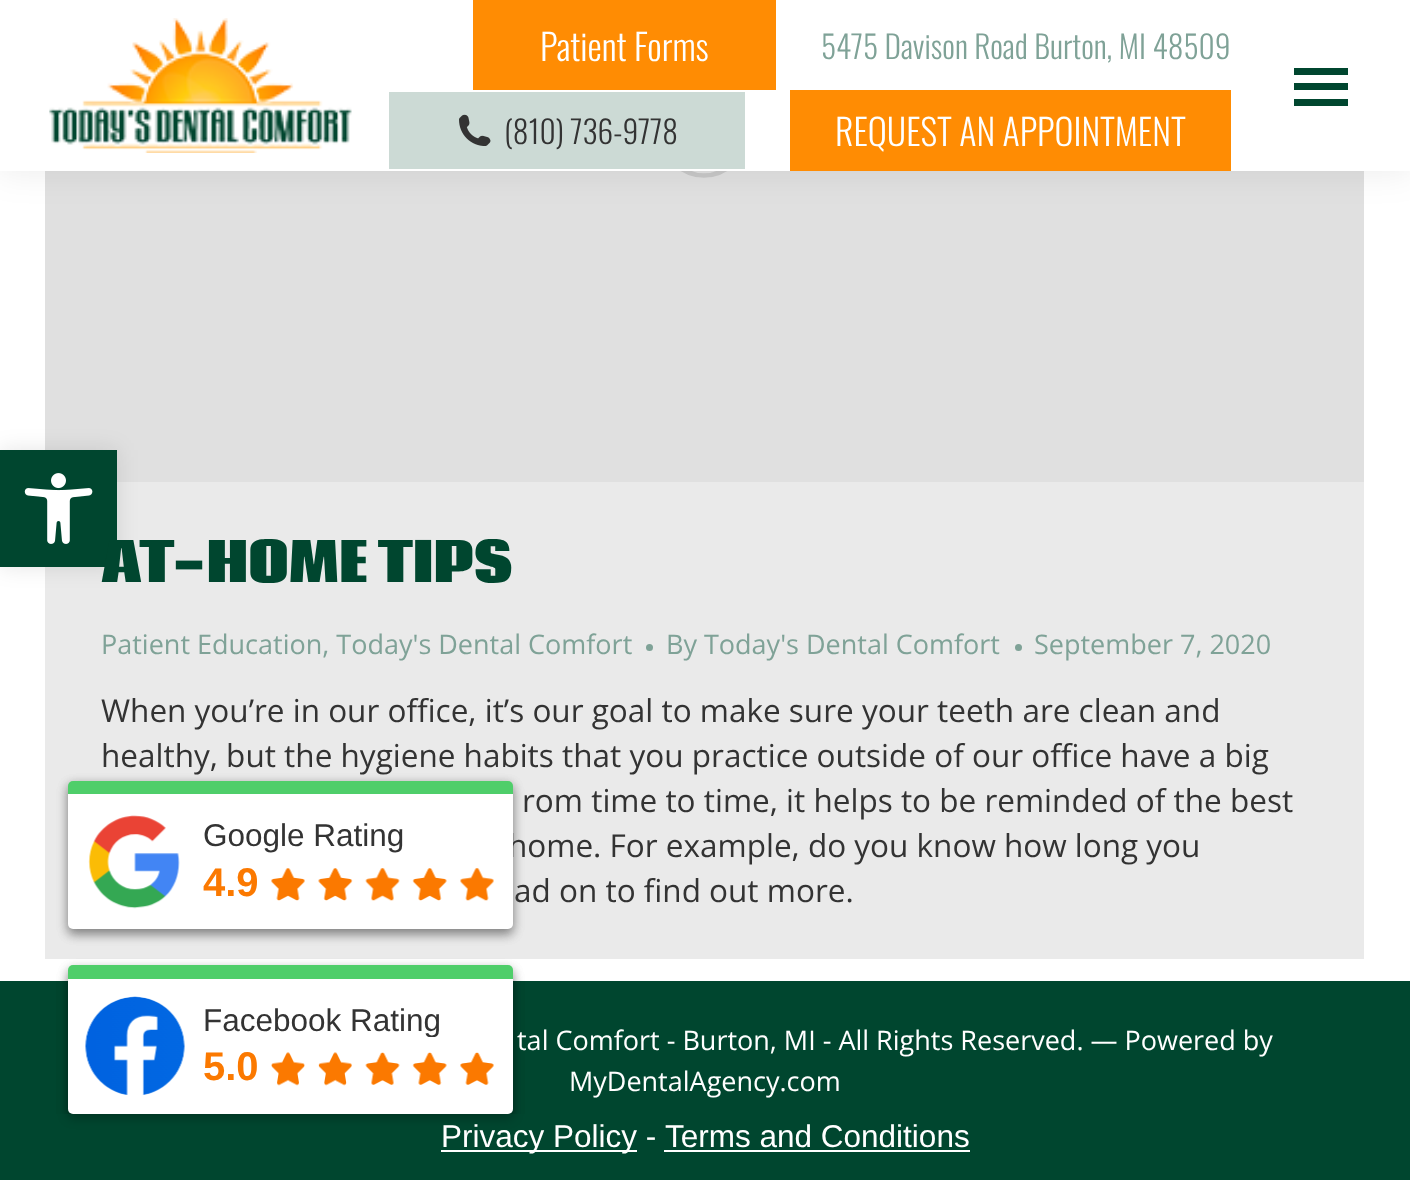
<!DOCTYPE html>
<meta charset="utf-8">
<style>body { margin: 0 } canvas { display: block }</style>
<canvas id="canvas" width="1410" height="1180"></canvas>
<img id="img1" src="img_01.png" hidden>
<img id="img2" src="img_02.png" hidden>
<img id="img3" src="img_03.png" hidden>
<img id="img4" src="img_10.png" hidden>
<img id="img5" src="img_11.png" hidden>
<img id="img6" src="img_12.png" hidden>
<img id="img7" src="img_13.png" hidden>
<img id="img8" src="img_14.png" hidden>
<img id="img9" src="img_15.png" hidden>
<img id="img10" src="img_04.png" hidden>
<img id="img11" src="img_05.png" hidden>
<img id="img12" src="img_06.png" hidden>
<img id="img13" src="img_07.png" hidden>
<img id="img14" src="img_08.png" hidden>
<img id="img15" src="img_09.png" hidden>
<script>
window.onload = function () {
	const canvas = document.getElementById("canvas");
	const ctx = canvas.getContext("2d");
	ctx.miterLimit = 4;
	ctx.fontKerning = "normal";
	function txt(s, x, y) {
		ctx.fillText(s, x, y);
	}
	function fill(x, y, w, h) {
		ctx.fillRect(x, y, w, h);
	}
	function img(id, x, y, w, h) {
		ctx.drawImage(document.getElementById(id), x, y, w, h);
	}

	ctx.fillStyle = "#FFFFFF";
	fill(0, 0, 1410, 1180);
	ctx.fillStyle = "#EAEAEA";
	fill(45, 482, 1319, 477);
	ctx.fillStyle = "#E0E0E0";
	fill(45, 171, 1319, 311);
	ctx.fillStyle = "rgba(0, 0, 0, 0.1)";
	ctx.filter = "blur(11px)";
	ctx.beginPath();
	ctx.rect(0, 450, 117, 117);
	ctx.fill();
	ctx.filter = "none";
	ctx.fillStyle = "#00462F";
	fill(0, 450, 117, 117);
	img("img1", 24, 473, 69, 71);
	ctx.beginPath();
	ctx.arc(704, 135, 40.5, 0, Math.PI * 2);
	ctx.strokeStyle = "#C8C8C8";
	ctx.lineWidth = 4.5;
	ctx.stroke();
	ctx.fillStyle = "rgba(0, 0, 0, 0.07)";
	ctx.filter = "blur(17px)";
	ctx.beginPath();
	ctx.rect(-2, -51, 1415, 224);
	ctx.fill();
	ctx.filter = "none";
	ctx.fillStyle = "#FFFFFF";
	fill(0, 0, 1410, 171);
	img("img2", 49, 18, 303, 135);
	ctx.fillStyle = "#FF8C03";
	fill(473, 0, 303, 90);
	ctx.fillStyle = "#CCDAD5";
	fill(389, 92, 356, 77);
	img("img3", 459, 114, 32, 32);
	ctx.fillStyle = "#FF8C03";
	fill(790, 90, 441, 81);
	ctx.fillStyle = "#00462F";
	fill(1294, 68, 54, 7);
	fill(1294, 83, 54, 7);
	fill(1294, 99, 54, 7);
	ctx.fillStyle = "#7FA297";
	ctx.beginPath();
	ctx.arc(649.5, 647.5, 3.5, 0, Math.PI * 2);
	ctx.fill();
	ctx.beginPath();
	ctx.arc(1018.5, 647.5, 3.5, 0, Math.PI * 2);
	ctx.fill();
	ctx.fillStyle = "#00462F";
	fill(0, 981, 1410, 133);
	ctx.fillStyle = "rgba(0, 0, 0, 0.26)";
	ctx.filter = "blur(5.5px)";
	ctx.beginPath();
	ctx.roundRect(68, 785, 445, 149, 5);
	ctx.fill();
	ctx.filter = "none";
	ctx.filter = "blur(5.5px)";
	ctx.beginPath();
	ctx.roundRect(68, 970, 445, 148, 5);
	ctx.fill();
	ctx.filter = "none";
	ctx.filter = "blur(5.5px)";
	ctx.beginPath();
	ctx.roundRect(68, 785, 445, 149, 5);
	ctx.fill();
	ctx.filter = "none";
	ctx.fillStyle = "#4FCE6A";
	ctx.beginPath();
	ctx.roundRect(68, 781, 445, 13, [5, 5, 0, 0]);
	ctx.fill();
	ctx.fillStyle = "#00462F";
	fill(0, 1114, 1410, 66);
	ctx.fillStyle = "rgba(0, 0, 0, 0.26)";
	ctx.filter = "blur(5.5px)";
	ctx.beginPath();
	ctx.roundRect(68, 970, 445, 148, 5);
	ctx.fill();
	ctx.filter = "none";
	ctx.fillStyle = "#4FCE6A";
	ctx.beginPath();
	ctx.roundRect(68, 965, 445, 14, [5, 5, 0, 0]);
	ctx.fill();
	ctx.fillStyle = "#FFFFFF";
	ctx.beginPath();
	ctx.roundRect(68, 979, 445, 135, [0, 0, 5, 5]);
	ctx.fill();
	img("img4", 85, 996, 100, 99);
	img("img5", 271, 1052, 34, 34);
	img("img6", 318, 1052, 34, 34);
	img("img7", 365, 1052, 35, 33);
	img("img8", 412, 1052, 35, 33);
	img("img9", 460, 1052, 34, 33);
	fill(441, 1150, 196, 2);
	fill(664, 1150, 306, 2);
	ctx.font = "300 36px Oswald";
	txt("Patient Forms", 540, 61);
	ctx.font = "300 31.5px Oswald";
	ctx.fillStyle = "#7FA297";
	txt("5475 Davison Road Burton, MI 48509", 821, 59);
	ctx.fillStyle = "#333333";
	txt("(810) 736-9778", 504, 144);
	ctx.font = "300 36px Oswald";
	ctx.fillStyle = "#FFFFFF";
	txt("REQUEST AN APPOINTMENT", 835, 146);
	ctx.font = "800 54px Coda";
	ctx.fillStyle = "#00462F";
	txt("AT-HOME TIPS", 101, 582);
	ctx.font = "27px Open Sans";
	ctx.fillStyle = "#7FA297";
	txt("Patient Education, Today's Dental Comfort", 101, 654);
	txt("By Today's Dental Comfort", 666, 654);
	txt("September 7, 2020", 1034, 654);
	ctx.font = "31.5px Open Sans";
	ctx.fillStyle = "#333333";
	txt("When you’re in our office, it’s our goal to make sure your teeth are clean and", 101, 722);
	txt("healthy, but the hygiene habits that you practice outside of our office have a big", 101, 767);
	txt("rom time to time, it helps to be reminded of the best", 522, 812);
	txt("home. For example, do you know how long you", 508, 857);
	txt("ad on to find out more.", 514, 902);
	ctx.font = "27px Open Sans";
	ctx.fillStyle = "#FFFFFF";
	txt("tal Comfort - Burton, MI - All Rights Reserved. — Powered by", 517, 1050);
	txt("MyDentalAgency.com", 569, 1091);
	ctx.beginPath();
	ctx.roundRect(68, 794, 445, 135, [0, 0, 5, 5]);
	ctx.fill();
	img("img10", 88, 815, 92, 94);
	ctx.font = "31.5px Liberation Sans";
	ctx.fillStyle = "#333333";
	txt("Google Rating", 203, 846);
	ctx.font = "bold 40px Liberation Sans";
	ctx.fillStyle = "#FB7900";
	txt("4.9", 203, 896);
	img("img11", 271, 868, 34, 33);
	img("img12", 318, 868, 35, 33);
	img("img13", 365, 868, 35, 33);
	img("img14", 412, 868, 35, 33);
	img("img15", 460, 868, 34, 33);
	ctx.save();
	ctx.beginPath();
	ctx.rect(203, 1001, 292, 36);
	ctx.clip();
	ctx.font = "31.5px Liberation Sans";
	ctx.fillStyle = "#333333";
	txt("Facebook Rating", 203, 1031);
	ctx.restore();
	txt("5.0", 203, 1080);
	ctx.font = "31.5px Liberation Sans";
	ctx.fillStyle = "#FFFFFF";
	txt("Privacy Policy -", 441, 1147);
	txt("Terms and Conditions", 665, 1147);
};
</script>
